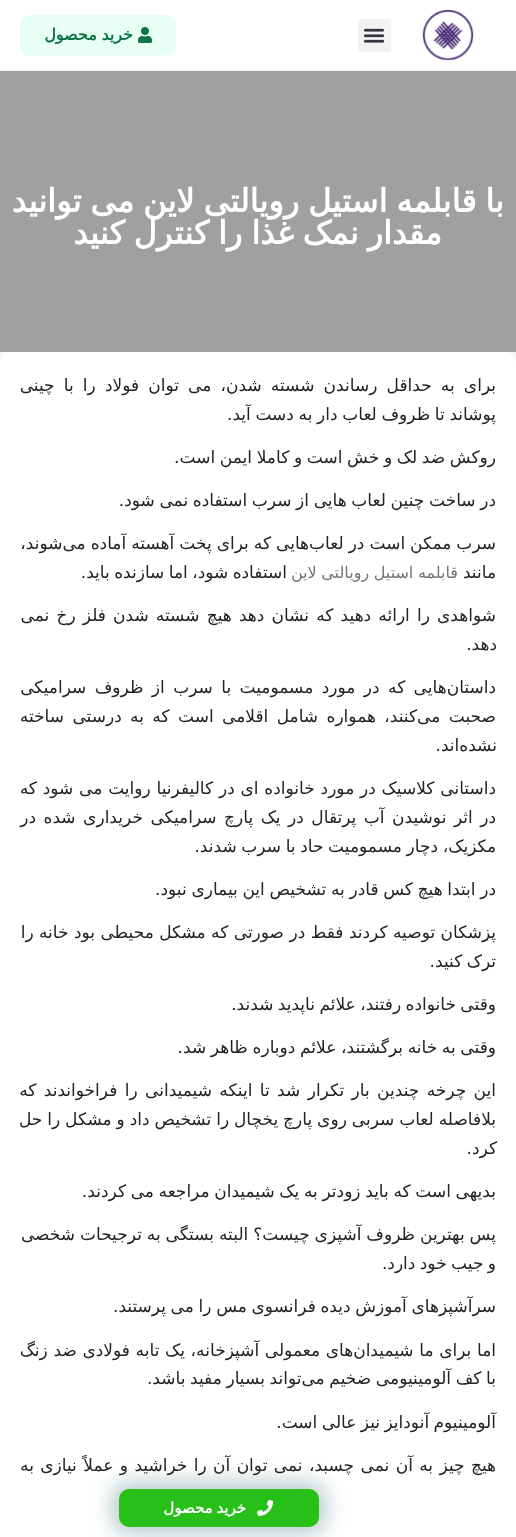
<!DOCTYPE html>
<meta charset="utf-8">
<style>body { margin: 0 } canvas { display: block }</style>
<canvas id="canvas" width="516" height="1537"></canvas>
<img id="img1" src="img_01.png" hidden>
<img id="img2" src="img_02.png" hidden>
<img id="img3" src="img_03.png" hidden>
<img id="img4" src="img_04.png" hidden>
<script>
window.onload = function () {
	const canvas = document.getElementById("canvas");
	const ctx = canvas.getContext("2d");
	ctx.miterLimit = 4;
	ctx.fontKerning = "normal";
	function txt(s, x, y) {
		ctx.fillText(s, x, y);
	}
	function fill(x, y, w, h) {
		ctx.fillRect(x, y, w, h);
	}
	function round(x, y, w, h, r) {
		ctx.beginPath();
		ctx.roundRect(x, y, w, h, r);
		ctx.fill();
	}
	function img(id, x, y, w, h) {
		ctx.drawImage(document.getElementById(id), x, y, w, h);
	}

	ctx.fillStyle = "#FFFFFF";
	fill(0, 0, 516, 1537);
	ctx.fillStyle = "#EEEEEE";
	fill(0, 70, 516, 1);
	img("img1", 422, 10, 52, 50);
	ctx.fillStyle = "#F2F2F2";
	round(358, 19, 33, 33, 3);
	img("img2", 363, 28, 22, 15);
	ctx.fillStyle = "#E7FFF4";
	round(20, 15, 156, 41, 10);
	img("img3", 138, 27, 14, 16);
	ctx.fillStyle = "#A0A0A0";
	fill(0, 71, 516, 281);
	ctx.fillStyle = "#F5F5F5";
	fill(0, 352, 516, 10);
	ctx.fillStyle = "#FFFFFF";
	round(0, 352, 516, 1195, 10);
	ctx.fillStyle = "rgba(4, 75, 77, 0.29)";
	ctx.filter = "blur(10.5px)";
	ctx.beginPath();
	ctx.roundRect(112, 1482, 214, 52, 17);
	ctx.fill();
	ctx.filter = "none";
	ctx.fillStyle = "#26C019";
	round(119, 1489, 200, 38, 10);
	img("img4", 257, 1500, 16, 16);
	ctx.wordSpacing = "-0.5px";
	ctx.direction = "rtl";
	ctx.font = "bold 16px DejaVu Sans";
	ctx.fillStyle = "#0C7544";
	txt("خرید محصول", 133, 40);
	ctx.wordSpacing = "-1.25px";
	ctx.font = "bold 32px DejaVu Sans";
	ctx.fillStyle = "#FFFFFF";
	txt("با قابلمه استیل رویالتی لاین می توانید", 504, 212);
	txt("مقدار نمک غذا را کنترل کنید", 442, 244);
	ctx.wordSpacing = "3.75px";
	ctx.font = "17px DejaVu Sans";
	ctx.fillStyle = "#232323";
	txt("برای به حداقل رساندن شسته شدن، می توان فولاد را با چینی", 496, 391);
	ctx.wordSpacing = "-0.75px";
	txt("پوشاند تا ظروف لعاب دار به دست آید.", 496, 420);
	txt("روکش ضد لک و خش است و کاملا ایمن است.", 496, 463);
	txt("در ساخت چنین لعاب هایی از سرب استفاده نمی شود.", 496, 506);
	ctx.wordSpacing = "-0.4px";
	txt("سرب ممکن است در لعاب‌هایی که برای پخت آهسته آماده می‌شوند،", 496, 549);
	ctx.wordSpacing = "0px";
	txt("مانند", 496, 578);
	ctx.wordSpacing = "-0.5px";
	ctx.font = "16px DejaVu Sans";
	ctx.fillStyle = "#757474";
	txt("قابلمه استیل رویالتی لاین", 458, 578);
	ctx.wordSpacing = "-1px";
	ctx.font = "17px DejaVu Sans";
	ctx.fillStyle = "#232323";
	txt("استفاده شود، اما سازنده باید.", 287, 578);
	ctx.wordSpacing = "1.75px";
	txt("شواهدی را ارائه دهید که نشان دهد هیچ شسته شدن فلز رخ نمی", 496, 621);
	ctx.wordSpacing = "0px";
	txt("دهد.", 497, 650);
	ctx.wordSpacing = "3px";
	txt("داستان‌هایی که در مورد مسمومیت با سرب از ظروف سرامیکی", 496, 693);
	txt("صحبت می‌کنند، همواره شامل اقلامی است که به درستی ساخته", 496, 722);
	ctx.wordSpacing = "0px";
	txt("نشده‌اند.", 497, 751);
	ctx.wordSpacing = "0.4px";
	txt("داستانی کلاسیک در مورد خانواده ای در کالیفرنیا روایت می شود که", 496, 794);
	ctx.wordSpacing = "2.1px";
	txt("در اثر نوشیدن آب پرتقال در یک پارچ سرامیکی خریداری شده در", 496, 823);
	ctx.wordSpacing = "-0.75px";
	txt("مکزیک، دچار مسمومیت حاد با سرب شدند.", 496, 852);
	txt("در ابتدا هیچ کس قادر به تشخیص این بیماری نبود.", 496, 895);
	ctx.wordSpacing = "0px";
	txt("پزشکان توصیه کردند فقط در صورتی که مشکل محیطی بود خانه را", 496, 938);
	ctx.wordSpacing = "-1px";
	txt("ترک کنید.", 496, 967);
	txt("وقتی خانواده رفتند، علائم ناپدید شدند.", 496, 1010);
	ctx.wordSpacing = "-0.75px";
	txt("وقتی به خانه برگشتند، علائم دوباره ظاهر شد.", 496, 1053);
	ctx.wordSpacing = "2px";
	txt("این چرخه چندین بار تکرار شد تا اینکه شیمیدانی را فراخواندند که", 496, 1096);
	ctx.wordSpacing = "-0.5px";
	txt("بلافاصله لعاب سربی روی پارچ یخچال را تشخیص داد و مشکل را حل", 496, 1125);
	ctx.wordSpacing = "0px";
	txt("کرد.", 497, 1154);
	ctx.wordSpacing = "-0.75px";
	txt("بدیهی است که باید زودتر به یک شیمیدان مراجعه می کردند.", 496, 1197);
	ctx.wordSpacing = "-0.5px";
	txt("پس بهترین ظروف آشپزی چیست؟ البته بستگی به ترجیحات شخصی", 496, 1240);
	ctx.wordSpacing = "-1px";
	txt("و جیب خود دارد.", 496, 1269);
	ctx.wordSpacing = "-0.75px";
	txt("سرآشپزهای آموزش دیده فرانسوی مس را می پرستند.", 496, 1312);
	ctx.wordSpacing = "0.25px";
	txt("اما برای ما شیمیدان‌های معمولی آشپزخانه، یک تابه فولادی ضد زنگ", 496, 1356);
	ctx.wordSpacing = "-0.75px";
	txt("با کف آلومینیومی ضخیم می‌تواند بسیار مفید باشد.", 496, 1384);
	ctx.wordSpacing = "-1px";
	txt("آلومینیوم آنودایز نیز عالی است.", 496, 1428);
	ctx.wordSpacing = "1px";
	txt("هیچ چیز به آن نمی چسبد، نمی توان آن را خراشید و عملاً نیازی به", 496, 1471);
	ctx.wordSpacing = "-1px";
	ctx.font = "bold 15px DejaVu Sans";
	ctx.fillStyle = "#FFFFFF";
	txt("خرید محصول", 246, 1513);
};
</script>
